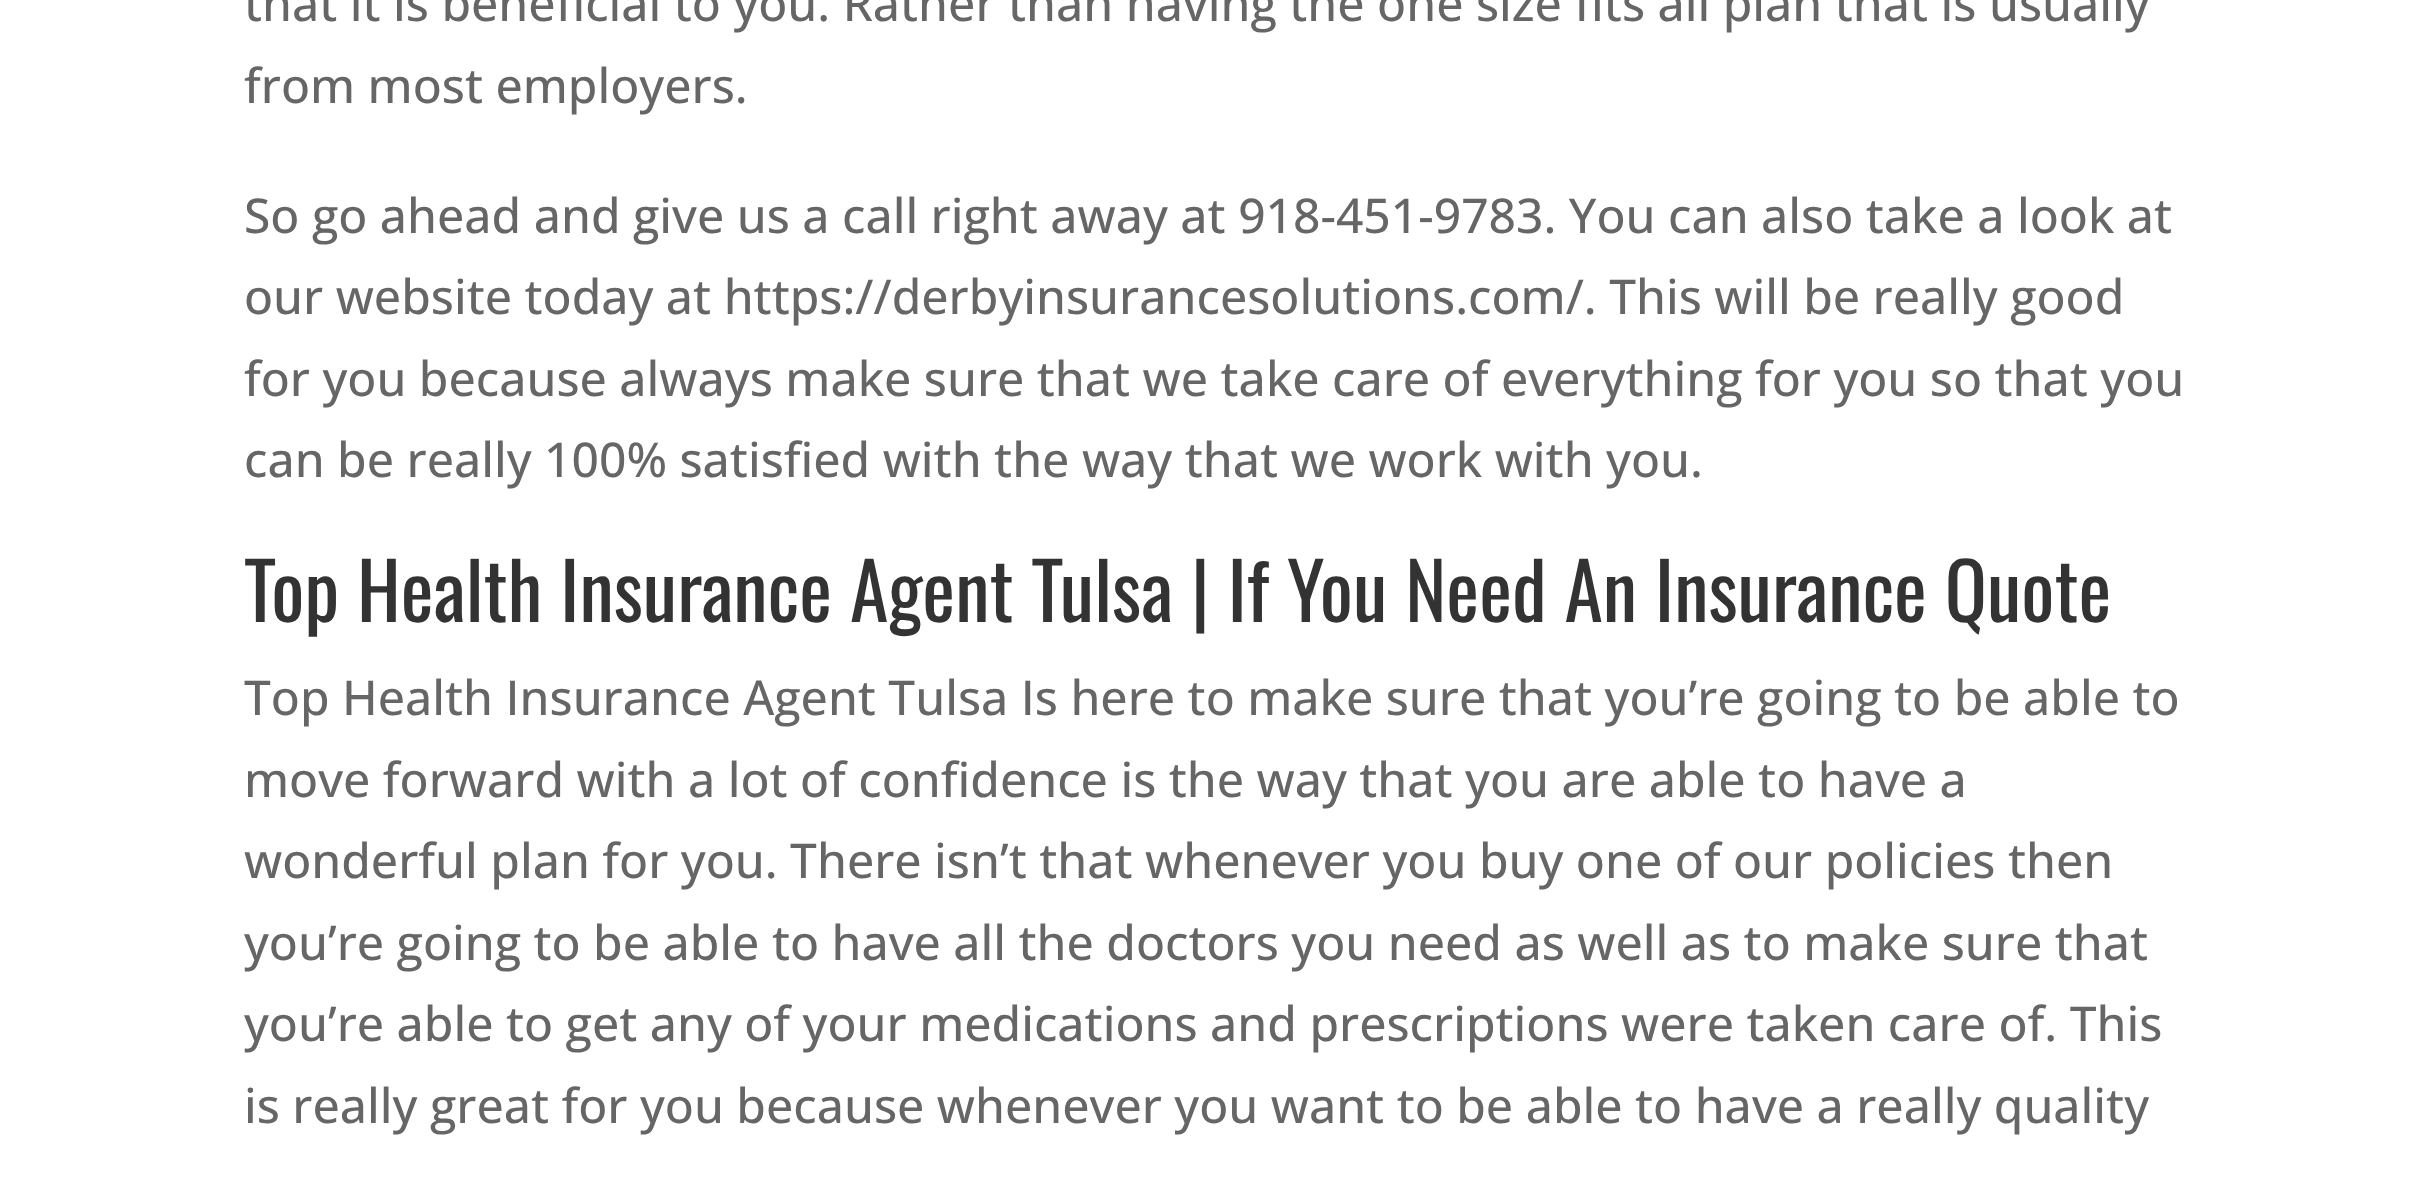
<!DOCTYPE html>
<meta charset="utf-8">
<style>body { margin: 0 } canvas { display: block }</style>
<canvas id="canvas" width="2434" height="1190"></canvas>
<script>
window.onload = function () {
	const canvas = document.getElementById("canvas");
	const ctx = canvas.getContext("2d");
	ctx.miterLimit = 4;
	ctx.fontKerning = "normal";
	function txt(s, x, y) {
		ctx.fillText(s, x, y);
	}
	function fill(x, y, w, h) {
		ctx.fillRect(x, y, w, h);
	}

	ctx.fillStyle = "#FFFFFF";
	fill(0, 0, 2434, 1190);
	ctx.font = "500 48px Open Sans";
	ctx.fillStyle = "#666666";
	txt("that it is beneficial to you. Rather than having the one size fits all plan that is usually", 244, 21);
	txt("from most employers.", 244, 103);
	txt("So go ahead and give us a call right away at 918-451-9783. You can also take a look at", 244, 233);
	txt("our website today at https://derbyinsurancesolutions.com/. This will be really good", 244, 314);
	txt("for you because always make sure that we take care of everything for you so that you", 244, 396);
	txt("can be really 100% satisfied with the way that we work with you.", 244, 477);
	ctx.font = "78px Oswald";
	ctx.fillStyle = "#333333";
	txt("Top Health Insurance Agent Tulsa | If You Need An Insurance Quote", 244, 622);
	ctx.font = "500 48px Open Sans";
	ctx.fillStyle = "#666666";
	txt("Top Health Insurance Agent Tulsa Is here to make sure that you’re going to be able to", 244, 715);
	txt("move forward with a lot of confidence is the way that you are able to have a", 244, 797);
	txt("wonderful plan for you. There isn’t that whenever you buy one of our policies then", 244, 878);
	txt("you’re going to be able to have all the doctors you need as well as to make sure that", 244, 960);
	txt("you’re able to get any of your medications and prescriptions were taken care of. This", 244, 1041);
	txt("is really great for you because whenever you want to be able to have a really quality", 244, 1123);
};
</script>
